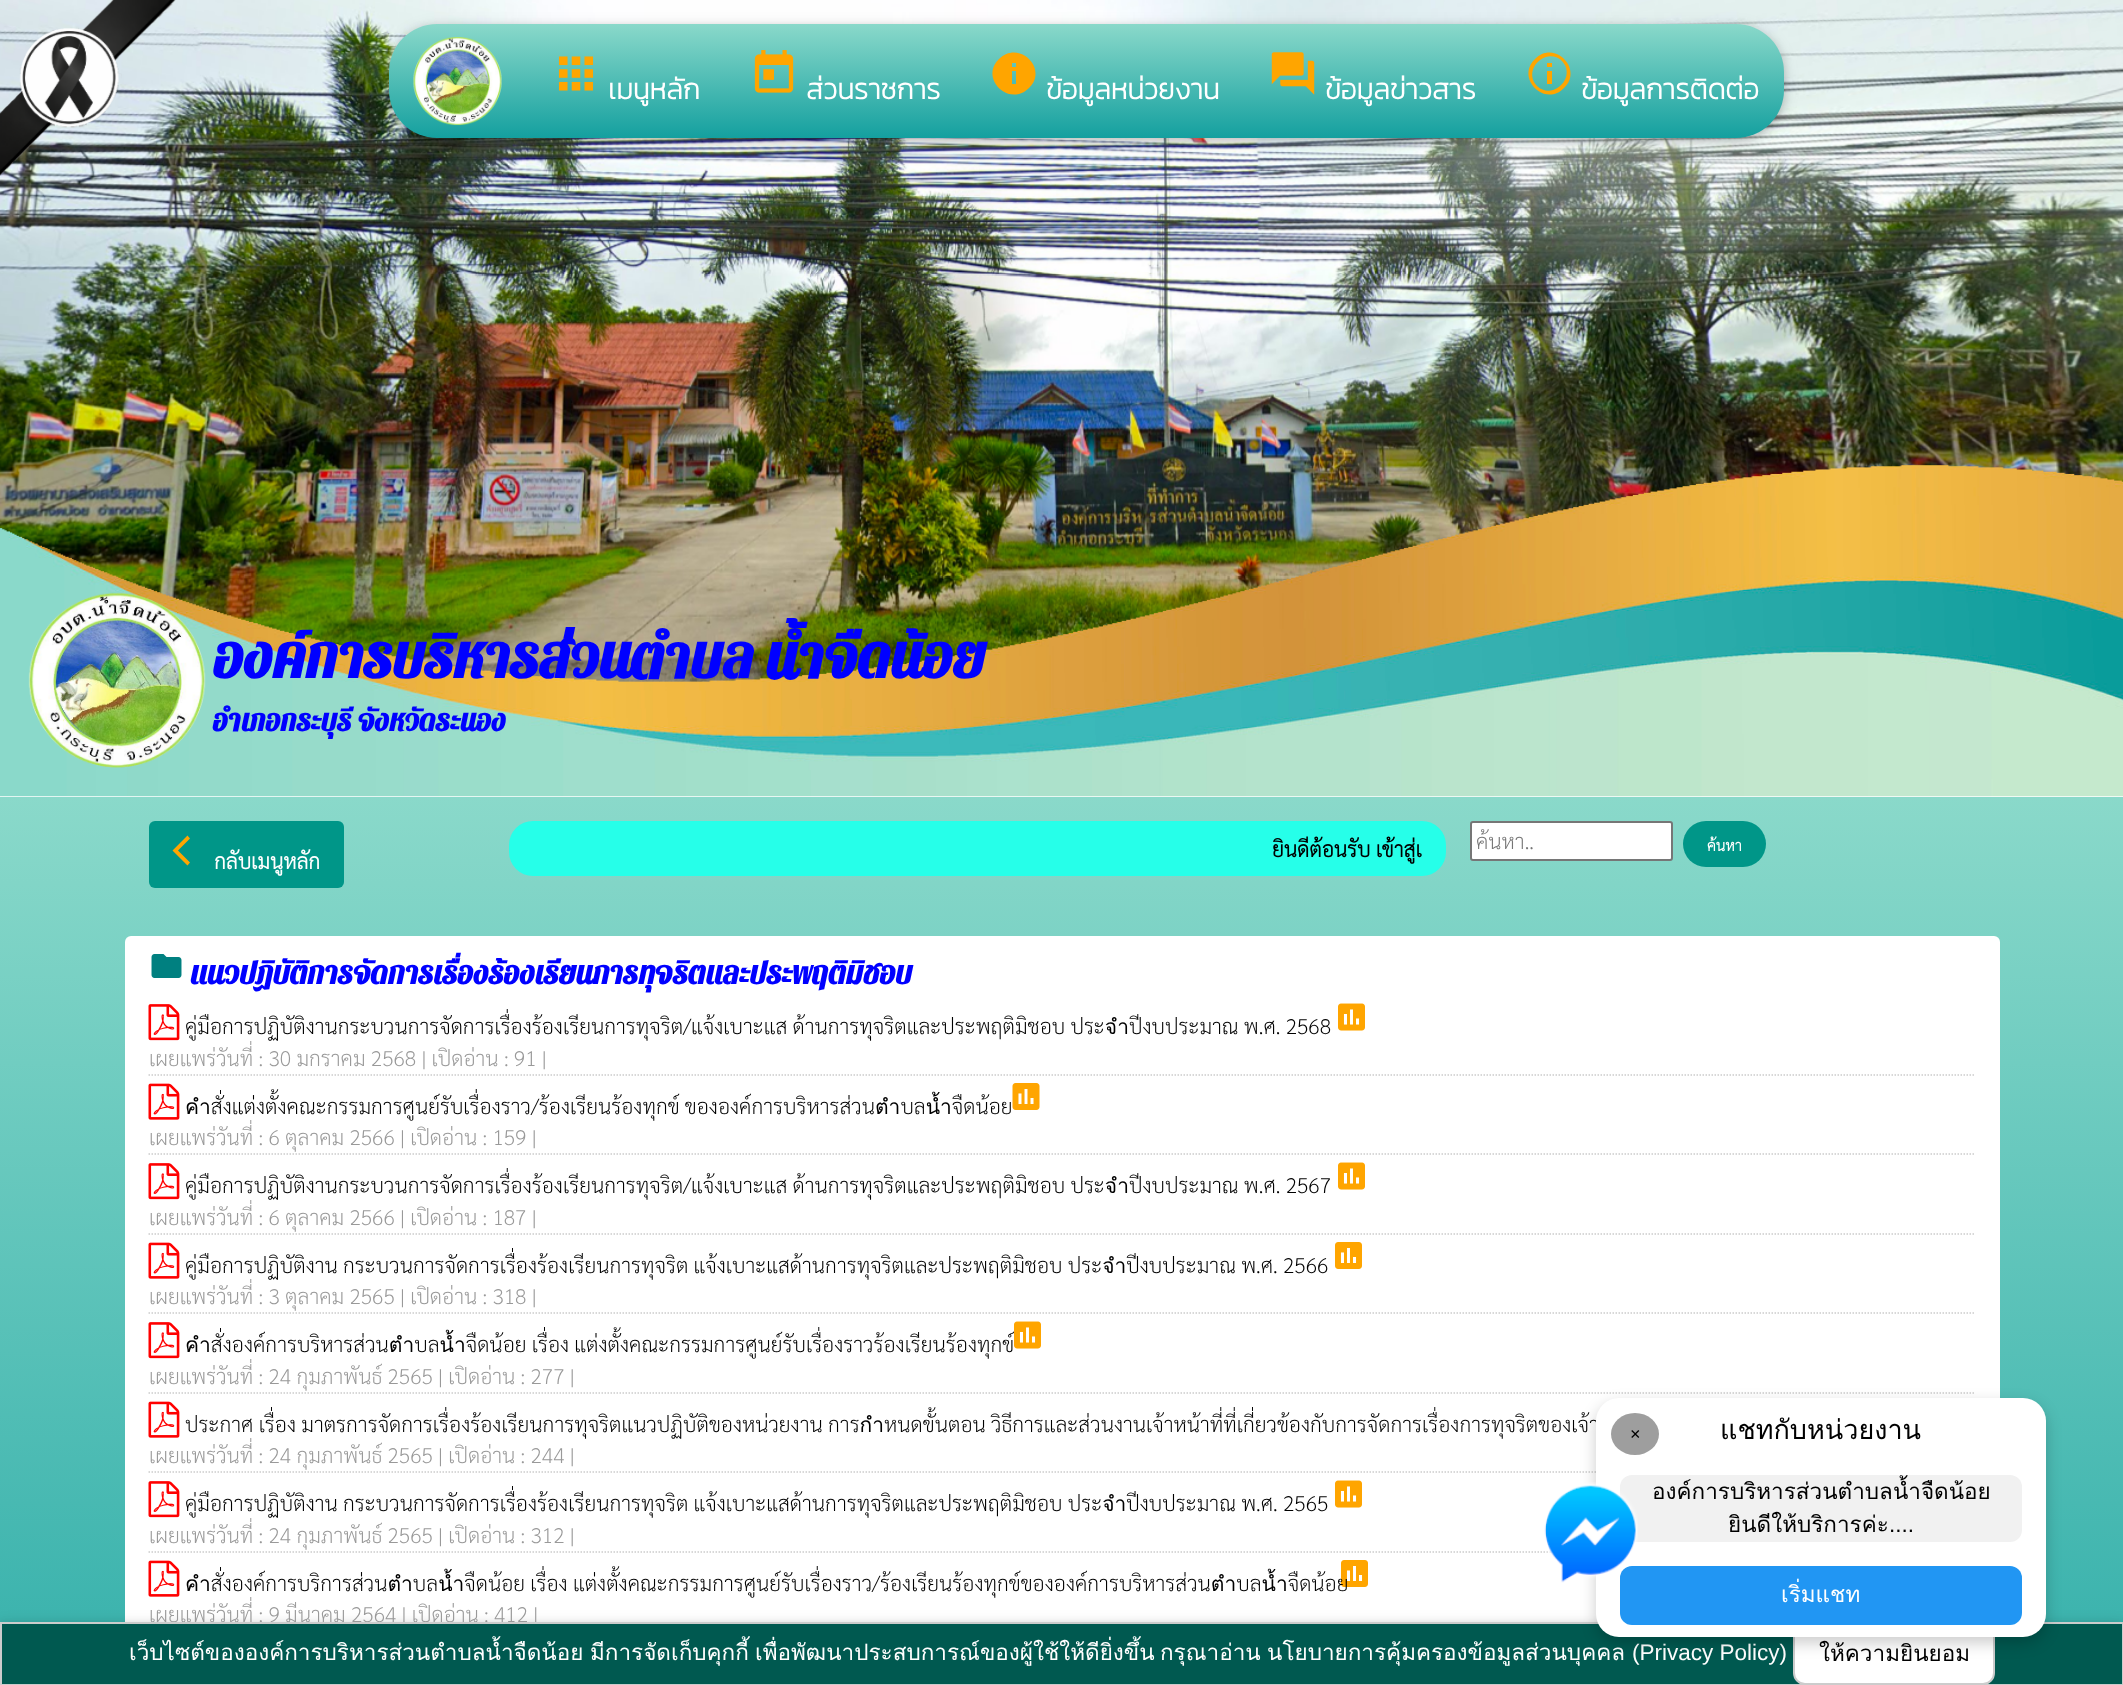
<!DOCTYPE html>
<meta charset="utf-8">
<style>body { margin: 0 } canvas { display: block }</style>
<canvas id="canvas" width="2123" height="1685"></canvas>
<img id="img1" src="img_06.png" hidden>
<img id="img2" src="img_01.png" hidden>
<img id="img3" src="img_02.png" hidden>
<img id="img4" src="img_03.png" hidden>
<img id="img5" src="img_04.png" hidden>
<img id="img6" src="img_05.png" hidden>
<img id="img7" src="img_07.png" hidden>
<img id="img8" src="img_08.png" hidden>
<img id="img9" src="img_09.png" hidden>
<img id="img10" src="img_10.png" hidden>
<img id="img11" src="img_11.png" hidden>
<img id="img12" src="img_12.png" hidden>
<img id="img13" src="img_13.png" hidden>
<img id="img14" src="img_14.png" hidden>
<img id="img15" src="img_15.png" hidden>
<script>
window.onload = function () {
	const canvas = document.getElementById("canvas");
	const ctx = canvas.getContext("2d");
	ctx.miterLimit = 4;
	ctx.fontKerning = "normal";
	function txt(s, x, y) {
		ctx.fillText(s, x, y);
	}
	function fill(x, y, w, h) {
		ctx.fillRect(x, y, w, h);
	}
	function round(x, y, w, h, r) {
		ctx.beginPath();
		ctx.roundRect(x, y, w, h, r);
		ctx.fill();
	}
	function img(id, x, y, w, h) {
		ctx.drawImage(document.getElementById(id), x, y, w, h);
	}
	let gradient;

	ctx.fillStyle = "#FFFFFF";
	fill(0, 0, 2123, 1685);
	img("img1", 0, 0, 2123, 682);
	img("img2", 0, 0, 176, 176);
	ctx.fillStyle = "rgba(0, 0, 0, 0.12)";
	ctx.filter = "blur(7.5px)";
	ctx.beginPath();
	ctx.roundRect(389, 27, 1395, 114, 48);
	ctx.fill();
	ctx.filter = "none";
	ctx.fillStyle = "rgba(0, 0, 0, 0.16)";
	ctx.filter = "blur(4px)";
	ctx.beginPath();
	ctx.roundRect(389, 27, 1395, 114, 48);
	ctx.fill();
	ctx.filter = "none";
	gradient = ctx.createLinearGradient(1086, 24, 1086, 138);
	gradient.addColorStop(0, "#8AD9CA");
	gradient.addColorStop(1, "#14A09F");
	ctx.fillStyle = gradient;
	round(389, 24, 1395, 114, 48);
	img("img3", 413, 37, 89, 89);
	img("img4", 558, 56, 36, 35);
	img("img5", 754, 50, 40, 43);
	ctx.fillStyle = "#FFA500";
	ctx.beginPath();
	ctx.moveTo(1016, 67);
	ctx.lineTo(1016, 63);
	ctx.lineTo(1012, 63);
	ctx.lineTo(1012, 67);
	ctx.closePath();
	ctx.moveTo(1016, 84);
	ctx.lineTo(1016, 71);
	ctx.lineTo(1012, 71);
	ctx.lineTo(1012, 84);
	ctx.closePath();
	ctx.moveTo(999, 59);
	ctx.bezierCurveTo(1019, 39, 1049, 69, 1029, 88);
	ctx.bezierCurveTo(1009, 108, 979, 78, 999, 59);
	ctx.closePath();
	ctx.fill();
	img("img6", 1271, 52, 44, 43);
	ctx.beginPath();
	ctx.moveTo(1547, 67);
	ctx.lineTo(1547, 63);
	ctx.lineTo(1552, 63);
	ctx.lineTo(1552, 67);
	ctx.closePath();
	ctx.moveTo(1537, 86);
	ctx.bezierCurveTo(1553, 101, 1577, 77, 1562, 61);
	ctx.bezierCurveTo(1546, 46, 1522, 70, 1537, 86);
	ctx.closePath();
	ctx.moveTo(1535, 59);
	ctx.bezierCurveTo(1554, 39, 1584, 69, 1564, 88);
	ctx.bezierCurveTo(1545, 108, 1515, 78, 1535, 59);
	ctx.closePath();
	ctx.moveTo(1547, 84);
	ctx.lineTo(1547, 71);
	ctx.lineTo(1552, 71);
	ctx.lineTo(1552, 84);
	ctx.closePath();
	ctx.fill();
	img("img7", 0, 465, 2123, 332);
	img("img8", 28, 592, 178, 176);
	gradient = ctx.createLinearGradient(1062, 796, 1062, 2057);
	gradient.addColorStop(0, "#8AD9CA");
	gradient.addColorStop(1, "#14A09F");
	ctx.fillStyle = gradient;
	fill(0, 797, 2123, 825);
	ctx.fillStyle = "#009688";
	round(149, 821, 195, 67, 6);
	ctx.fillStyle = "#FFA500";
	ctx.beginPath();
	ctx.moveTo(190, 838.5);
	ctx.lineTo(178, 850.5);
	ctx.lineTo(190, 862.5);
	ctx.lineTo(187.5, 865.5);
	ctx.lineTo(172.5, 850.5);
	ctx.lineTo(187.5, 835.5);
	ctx.closePath();
	ctx.fill();
	ctx.fillStyle = "#26FFE9";
	round(509, 821, 937, 55, 24);
	ctx.fillStyle = "#FFFFFF";
	ctx.beginPath();
	ctx.roundRect(1471, 822, 201, 38, 2);
	ctx.fill();
	ctx.strokeStyle = "#767676";
	ctx.lineWidth = 2;
	ctx.stroke();
	ctx.fillStyle = "#009688";
	round(1683, 821, 83, 46, 23);
	ctx.fillStyle = "#FFFFFF";
	round(125, 936, 1875, 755, 6);
	img("img9", 151, 954, 31, 24);
	img("img10", 148, 1004, 32, 37);
	img("img11", 1338, 1003, 27, 28);
	ctx.beginPath();
	ctx.moveTo(148.5, 1075);
	ctx.lineTo(1975.5, 1075);
	ctx.strokeStyle = "#CCCCCC";
	ctx.lineWidth = 1.5;
	ctx.setLineDash([1.5, 1.5]);
	ctx.stroke();
	img("img12", 148, 1083, 32, 37);
	img("img13", 1012, 1083, 28, 27);
	ctx.beginPath();
	ctx.moveTo(148.5, 1154);
	ctx.lineTo(1975.5, 1154);
	ctx.stroke();
	img("img10", 148, 1163, 32, 37);
	img("img11", 1338, 1162, 27, 28);
	ctx.beginPath();
	ctx.moveTo(148.5, 1234);
	ctx.lineTo(1975.5, 1234);
	ctx.stroke();
	img("img12", 148, 1242, 32, 37);
	img("img14", 1335, 1242, 27, 27);
	ctx.beginPath();
	ctx.moveTo(148.5, 1313);
	ctx.lineTo(1975.5, 1313);
	ctx.stroke();
	img("img10", 148, 1322, 32, 37);
	img("img11", 1014, 1321, 27, 28);
	ctx.beginPath();
	ctx.moveTo(148.5, 1393);
	ctx.lineTo(1975.5, 1393);
	ctx.stroke();
	img("img12", 148, 1401, 32, 37);
	ctx.beginPath();
	ctx.moveTo(148.5, 1472);
	ctx.lineTo(1975.5, 1472);
	ctx.stroke();
	img("img10", 148, 1481, 32, 37);
	img("img11", 1335, 1480, 27, 28);
	ctx.beginPath();
	ctx.moveTo(148.5, 1552);
	ctx.lineTo(1975.5, 1552);
	ctx.stroke();
	img("img12", 148, 1560, 32, 37);
	img("img14", 1341, 1560, 27, 27);
	ctx.fillStyle = "rgba(0, 0, 0, 0.12)";
	ctx.filter = "blur(7.5px)";
	ctx.beginPath();
	ctx.rect(0, 1625, 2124, 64);
	ctx.fill();
	ctx.filter = "none";
	ctx.fillStyle = "rgba(0, 0, 0, 0.16)";
	ctx.filter = "blur(4px)";
	ctx.beginPath();
	ctx.rect(0, 1625, 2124, 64);
	ctx.fill();
	ctx.filter = "none";
	ctx.font = "bold 28.5px Kanit";
	ctx.fillStyle = "#FFFFFF";
	txt("เมนูหลัก", 608, 99);
	txt("ส่วนราชการ", 806, 99);
	txt("ข้อมูลหน่วยงาน", 1046, 99);
	txt("ข้อมูลข่าวสาร", 1325, 99);
	txt("ข้อมูลการติดต่อ", 1581, 99);
	ctx.font = "bold 60px Pattaya";
	ctx.fillStyle = "#0000FF";
	txt("องค์การบริหารส่วนตำบล น้ำจืดน้อย", 213, 678);
	ctx.font = "bold 30px Pattaya";
	txt("อำเภอกระบุรี จังหวัดระนอง", 213, 731);
	ctx.font = "bold 21px Sarabun";
	ctx.fillStyle = "#FFFFFF";
	txt("กลับเมนูหลัก", 214, 869);
	ctx.fillStyle = "#000000";
	txt("ยินดีต้อนรับ เข้าสู่เ", 1272, 857);
	ctx.save();
	ctx.beginPath();
	ctx.rect(1476, 827, 191, 27);
	ctx.clip();
	ctx.font = "200 21px Sarabun";
	ctx.fillStyle = "#757575";
	txt("ค้นหา..", 1476, 849);
	ctx.restore();
	ctx.font = "bold 15px Sarabun";
	ctx.fillStyle = "#FFFFFF";
	txt("ค้นหา", 1707, 851);
	ctx.font = "bold 31.5px Pattaya";
	ctx.fillStyle = "#0000FF";
	txt("แนวปฏิบัติการจัดการเรื่องร้องเรียนการทุจริตและประพฤติมิชอบ", 190, 984);
	ctx.font = "200 21px Sarabun";
	ctx.fillStyle = "#000000";
	txt("คู่มือการปฏิบัติงานกระบวนการจัดการเรื่องร้องเรียนการทุจริต/แจ้งเบาะแส ด้านการทุจริตและประพฤติมิชอบ ประจำปีงบประมาณ พ.ศ. 2568", 185, 1034);
	ctx.fillStyle = "#999999";
	txt("เผยแพร่วันที่ : 30 มกราคม 2568 | เปิดอ่าน : 91 |", 149, 1066);
	ctx.fillStyle = "#000000";
	txt("คำสั่งแต่งตั้งคณะกรรมการศูนย์รับเรื่องราว/ร้องเรียนร้องทุกข์ ขององค์การบริหารส่วนตำบลน้ำจืดน้อย", 185, 1114);
	ctx.fillStyle = "#999999";
	txt("เผยแพร่วันที่ : 6 ตุลาคม 2566 | เปิดอ่าน : 159 |", 149, 1145);
	ctx.fillStyle = "#000000";
	txt("คู่มือการปฏิบัติงานกระบวนการจัดการเรื่องร้องเรียนการทุจริต/แจ้งเบาะแส ด้านการทุจริตและประพฤติมิชอบ ประจำปีงบประมาณ พ.ศ. 2567", 185, 1193);
	ctx.fillStyle = "#999999";
	txt("เผยแพร่วันที่ : 6 ตุลาคม 2566 | เปิดอ่าน : 187 |", 149, 1225);
	ctx.fillStyle = "#000000";
	txt("คู่มือการปฏิบัติงาน กระบวนการจัดการเรื่องร้องเรียนการทุจริต แจ้งเบาะแสด้านการทุจริตและประพฤติมิชอบ ประจำปีงบประมาณ พ.ศ. 2566", 185, 1273);
	ctx.fillStyle = "#999999";
	txt("เผยแพร่วันที่ : 3 ตุลาคม 2565 | เปิดอ่าน : 318 |", 149, 1304);
	ctx.fillStyle = "#000000";
	txt("คำสั่งองค์การบริหารส่วนตำบลน้ำจืดน้อย เรื่อง แต่งตั้งคณะกรรมการศูนย์รับเรื่องราวร้องเรียนร้องทุกข์", 185, 1352);
	ctx.fillStyle = "#999999";
	txt("เผยแพร่วันที่ : 24 กุมภาพันธ์ 2565 | เปิดอ่าน : 277 |", 149, 1384);
	ctx.fillStyle = "#000000";
	txt("ประกาศ เรื่อง มาตรการจัดการเรื่องร้องเรียนการทุจริตแนวปฏิบัติของหน่วยงาน การกำหนดขั้นตอน วิธีการและส่วนงานเจ้าหน้าที่ที่เกี่ยวข้องกับการจัดการเรื่องการทุจริตของเจ้า", 185, 1432);
	ctx.fillStyle = "#999999";
	txt("เผยแพร่วันที่ : 24 กุมภาพันธ์ 2565 | เปิดอ่าน : 244 |", 149, 1463);
	ctx.fillStyle = "#000000";
	txt("คู่มือการปฏิบัติงาน กระบวนการจัดการเรื่องร้องเรียนการทุจริต แจ้งเบาะแสด้านการทุจริตและประพฤติมิชอบ ประจำปีงบประมาณ พ.ศ. 2565", 185, 1511);
	ctx.fillStyle = "#999999";
	txt("เผยแพร่วันที่ : 24 กุมภาพันธ์ 2565 | เปิดอ่าน : 312 |", 149, 1543);
	ctx.fillStyle = "#000000";
	txt("คำสั่งองค์การบริการส่วนตำบลน้ำจืดน้อย เรื่อง แต่งตั้งคณะกรรมการศูนย์รับเรื่องราว/ร้องเรียนร้องทุกข์ขององค์การบริหารส่วนตำบลน้ำจืดน้อย", 185, 1591);
	ctx.fillStyle = "#999999";
	txt("เผยแพร่วันที่ : 9 มีนาคม 2564 | เปิดอ่าน : 412 |", 149, 1622);
	ctx.fillStyle = "#005950";
	ctx.beginPath();
	ctx.rect(1, 1623, 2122, 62);
	ctx.fill();
	ctx.lineWidth = 2;
	ctx.setLineDash([]);
	ctx.stroke();
	ctx.font = "22.5px Loma";
	ctx.fillStyle = "#FFFFFF";
	txt("เว็บไซต์ขององค์การบริหารส่วนตำบลน้ำจืดน้อย", 129, 1660);
	txt("มีการจัดเก็บคุกกี้", 590, 1660);
	txt("เพื่อพัฒนาประสบการณ์ของผู้ใช้ให้ดียิ่งขึ้น", 755, 1660);
	txt("กรุณาอ่าน", 1160, 1660);
	txt("นโยบายการคุ้มครองข้อมูลส่วนบุคคล", 1267, 1660);
	ctx.font = "22.5px Liberation Sans";
	txt("(Privacy Policy)", 1632, 1660);
	ctx.beginPath();
	ctx.roundRect(1794, 1624, 200, 60, 11);
	ctx.fill();
	ctx.stroke();
	ctx.fillStyle = "rgba(0, 0, 0, 0.2)";
	ctx.filter = "blur(7.5px)";
	ctx.beginPath();
	ctx.roundRect(1596, 1404, 450, 239, 23);
	ctx.fill();
	ctx.filter = "none";
	ctx.fillStyle = "#FFFFFF";
	round(1596, 1398, 450, 239, 23);
	ctx.fillStyle = "#2196F3";
	round(1620, 1566, 402, 59, 12);
	ctx.fillStyle = "#F1F1F1";
	round(1620, 1475, 402, 67, 12);
	img("img15", 1544, 1482, 94, 101);
	ctx.fillStyle = "#9E9E9E";
	ctx.beginPath();
	ctx.ellipse(1635, 1434, 24, 21, 0, 0, Math.PI * 2);
	ctx.fill();
	ctx.font = "18px Liberation Sans";
	ctx.fillStyle = "#000000";
	txt("×", 1630, 1440);
	ctx.font = "22.5px Loma";
	ctx.fillStyle = "#FFFFFF";
	txt("เริ่มแชท", 1781, 1602);
	ctx.font = "22.5px Liberation Sans";
	ctx.fillStyle = "#000000";
	txt("....", 1889, 1532);
	ctx.font = "22.5px Loma";
	txt("ยินดีให้บริการค่ะ", 1728, 1532);
	txt("องค์การบริหารส่วนตำบลน้ำจืดน้อย", 1652, 1499);
	ctx.font = "27px Loma";
	txt("แชทกับหน่วยงาน", 1720, 1439);
	ctx.font = "22.5px Loma";
	txt("ให้ความยินยอม", 1819, 1661);
};
</script>
